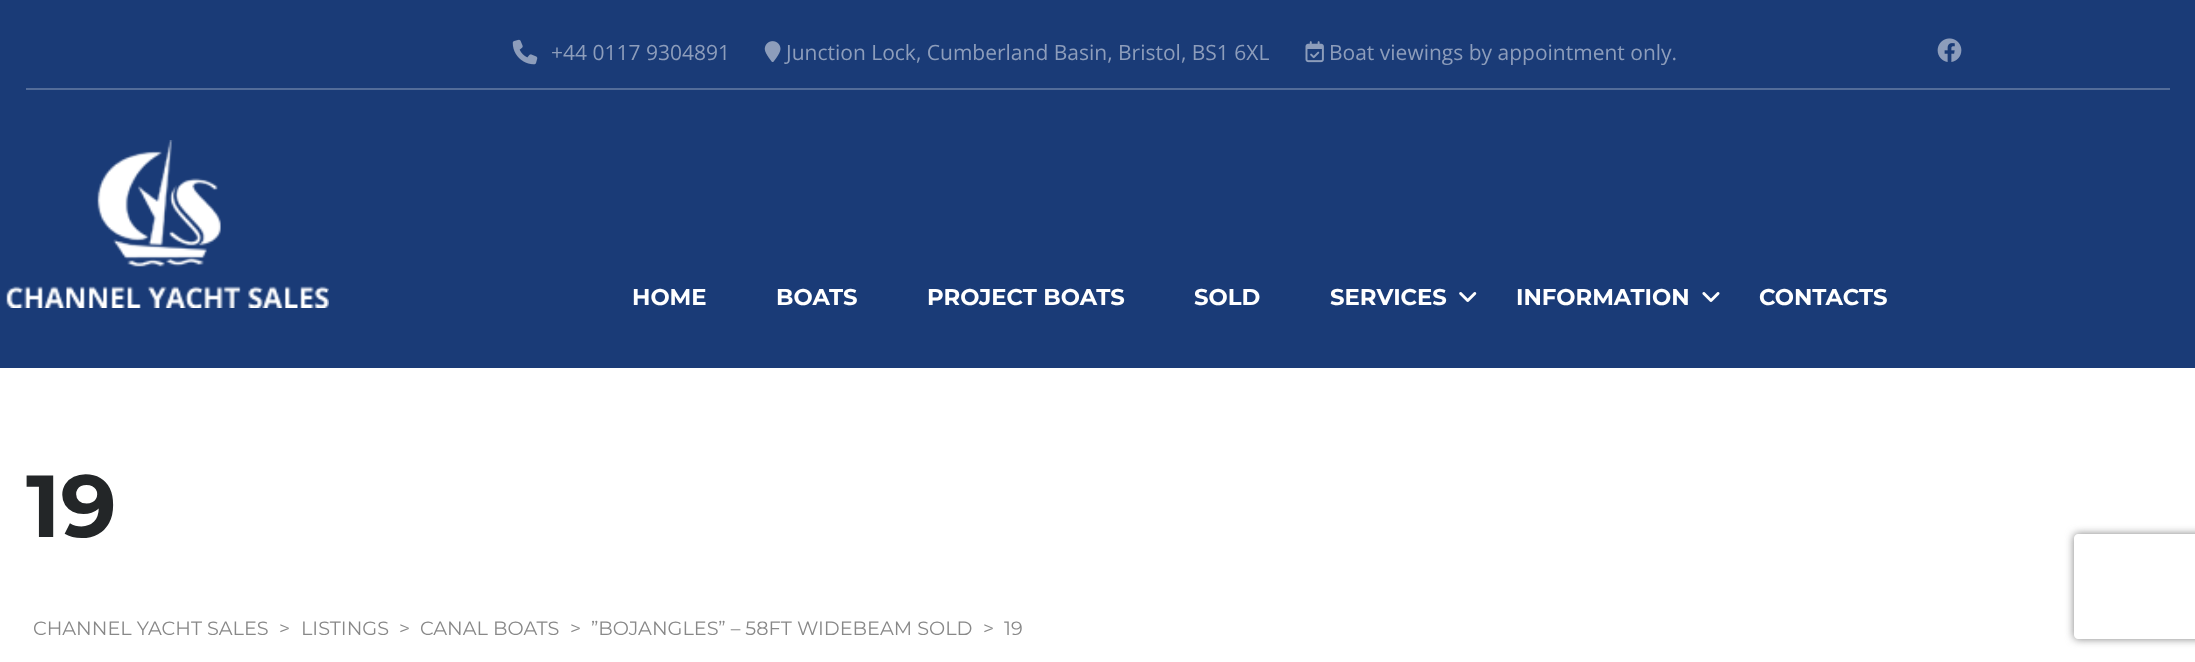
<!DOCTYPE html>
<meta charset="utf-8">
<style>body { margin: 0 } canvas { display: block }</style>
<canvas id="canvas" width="2195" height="662"></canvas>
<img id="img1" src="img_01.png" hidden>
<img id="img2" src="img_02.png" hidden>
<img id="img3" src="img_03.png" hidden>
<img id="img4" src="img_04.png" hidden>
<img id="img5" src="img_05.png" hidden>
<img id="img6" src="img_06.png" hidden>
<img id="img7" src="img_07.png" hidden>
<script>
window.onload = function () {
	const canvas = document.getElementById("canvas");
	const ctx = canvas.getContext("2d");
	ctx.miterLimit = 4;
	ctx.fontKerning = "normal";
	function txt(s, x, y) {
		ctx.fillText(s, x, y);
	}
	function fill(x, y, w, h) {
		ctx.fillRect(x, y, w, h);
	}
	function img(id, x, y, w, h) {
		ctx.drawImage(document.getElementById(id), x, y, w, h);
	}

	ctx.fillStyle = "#FFFFFF";
	fill(0, 0, 2195, 662);
	ctx.fillStyle = "#1A3B77";
	fill(0, 0, 2195, 368);
	ctx.fillStyle = "#536C99";
	fill(26, 88, 2144, 2);
	img("img1", 512, 39, 26, 26);
	img("img2", 764, 41, 17, 21);
	img("img3", 1305, 41, 19, 22);
	img("img4", 1937, 38, 25, 24);
	img("img5", 6, 140, 323, 168);
	img("img6", 1459, 292, 18, 10);
	img("img7", 1702, 292, 18, 10);
	ctx.save();
	ctx.beginPath();
	ctx.moveTo(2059, 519);
	ctx.lineTo(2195, 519);
	ctx.lineTo(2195, 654);
	ctx.lineTo(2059, 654);
	ctx.closePath();
	ctx.moveTo(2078, 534);
	ctx.lineTo(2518, 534);
	ctx.bezierCurveTo(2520, 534, 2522, 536, 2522, 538);
	ctx.lineTo(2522, 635);
	ctx.bezierCurveTo(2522, 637, 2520, 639, 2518, 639);
	ctx.lineTo(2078, 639);
	ctx.bezierCurveTo(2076, 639, 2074, 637, 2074, 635);
	ctx.lineTo(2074, 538);
	ctx.bezierCurveTo(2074, 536, 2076, 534, 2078, 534);
	ctx.closePath();
	ctx.clip("evenodd");
	ctx.fillStyle = "#808080";
	ctx.filter = "blur(4.5px)";
	ctx.beginPath();
	ctx.roundRect(2074, 534, 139, 105, 4);
	ctx.fill();
	ctx.filter = "none";
	ctx.restore();
	ctx.font = "21px Open Sans";
	ctx.fillStyle = "#8D9DBB";
	txt("+44 0117 9304891", 551, 60);
	txt("Junction Lock, Cumberland Basin, Bristol, BS1 6XL", 786, 60);
	txt("Boat viewings by appointment only.", 1329, 60);
	ctx.font = "bold 22.75px Montserrat";
	ctx.fillStyle = "#FFFFFF";
	txt("HOME", 632, 305);
	txt("BOATS", 776, 305);
	txt("PROJECT BOATS", 927, 305);
	txt("SOLD", 1194, 305);
	txt("SERVICES", 1330, 305);
	txt("INFORMATION", 1516, 305);
	txt("CONTACTS", 1759, 305);
	ctx.font = "bold 88px Montserrat";
	ctx.fillStyle = "#232628";
	txt("19", 26, 537);
	ctx.font = "19.25px Montserrat";
	ctx.fillStyle = "#888888";
	txt("CHANNEL YACHT SALES", 33, 635);
	txt(">", 279, 635);
	txt("LISTINGS", 301, 635);
	txt(">", 399, 635);
	txt("CANAL BOATS", 420, 635);
	txt(">", 570, 635);
	txt("”BOJANGLES” – 58FT WIDEBEAM SOLD", 591, 635);
	txt(">", 983, 635);
	txt("19", 1004, 635);
};
</script>
